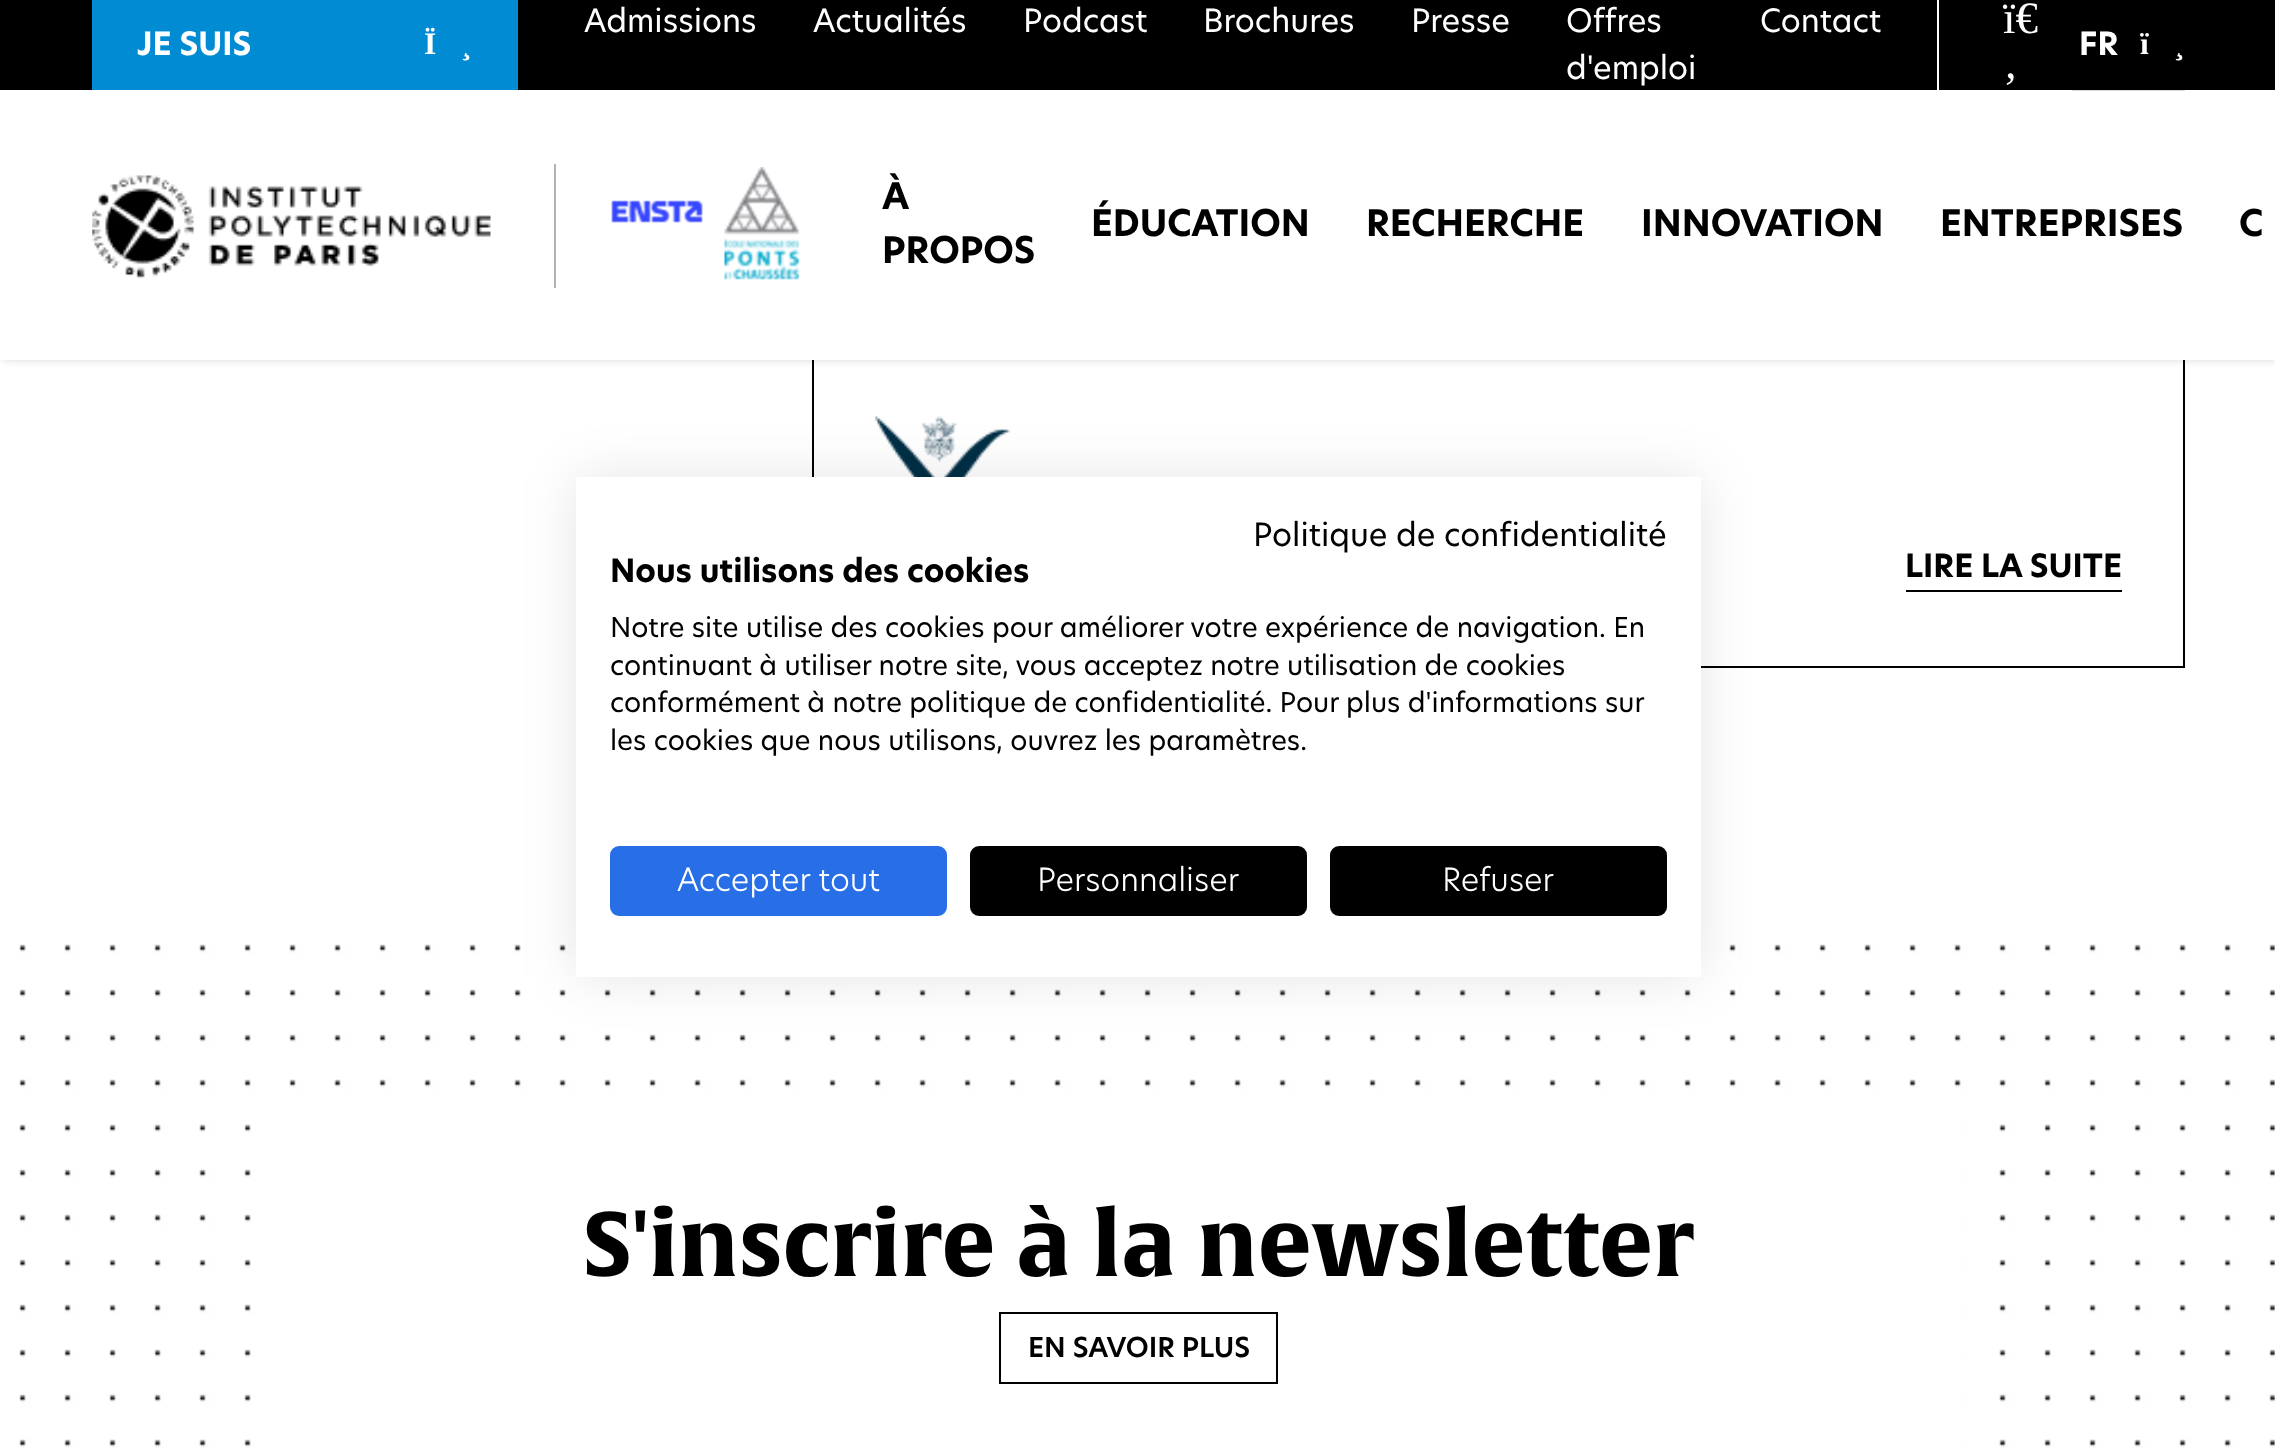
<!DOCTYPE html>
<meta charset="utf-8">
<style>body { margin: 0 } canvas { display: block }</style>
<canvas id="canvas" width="2275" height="1453"></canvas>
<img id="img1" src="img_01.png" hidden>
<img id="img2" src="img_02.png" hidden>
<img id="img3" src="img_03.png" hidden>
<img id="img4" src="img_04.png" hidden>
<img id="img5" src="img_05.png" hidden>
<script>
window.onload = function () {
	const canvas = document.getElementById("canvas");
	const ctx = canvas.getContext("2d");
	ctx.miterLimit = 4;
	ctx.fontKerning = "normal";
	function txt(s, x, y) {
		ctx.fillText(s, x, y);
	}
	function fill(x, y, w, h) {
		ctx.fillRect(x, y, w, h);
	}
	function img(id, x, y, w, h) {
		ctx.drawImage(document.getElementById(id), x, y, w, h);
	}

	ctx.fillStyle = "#FFFFFF";
	fill(0, 0, 2275, 1453);
	ctx.strokeStyle = "#000000";
	ctx.lineWidth = 2;
	ctx.strokeRect(813, -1, 1371, 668);
	ctx.fillStyle = "rgba(0, 0, 0, 0.15)";
	ctx.filter = "blur(4.5px)";
	ctx.beginPath();
	ctx.rect(2, 0, 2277, 360);
	ctx.fill();
	ctx.filter = "none";
	ctx.fillStyle = "#FFFFFF";
	fill(0, 90, 2275, 270);
	ctx.fillStyle = "#000000";
	fill(0, 0, 2275, 90);
	ctx.fillStyle = "#008BD2";
	fill(92, 0, 426, 90);
	ctx.fillStyle = "#FFFFFF";
	fill(1937, 0, 2, 92);
	ctx.fillStyle = "rgba(0, 0, 0, 0.15)";
	fill(2072, 90, 113, 1);
	ctx.fillStyle = "#B3B3B3";
	fill(554, 164, 2, 124);
	img("img1", 92, 175, 399, 103);
	img("img2", 611, 200, 92, 23);
	img("img3", 724, 167, 76, 113);
	img("img4", 875, 416, 136, 61);
	ctx.fillStyle = "#000000";
	fill(1906, 590, 216, 2);
	img("img5", 19, 944, 2256, 504);
	ctx.fillStyle = "#FFFFFF";
	fill(289, 1124, 1672, 324);
	ctx.strokeRect(1000, 1313, 277, 70);
	ctx.fillStyle = "rgba(0, 0, 0, 0.1)";
	ctx.filter = "blur(27px)";
	ctx.beginPath();
	ctx.rect(576, 477, 1125, 500);
	ctx.fill();
	ctx.filter = "none";
	ctx.fillStyle = "#FFFFFF";
	fill(576, 477, 1125, 500);
	ctx.fillStyle = "#286EE6";
	ctx.beginPath();
	ctx.roundRect(611, 847, 335, 68, 8);
	ctx.fill();
	ctx.strokeStyle = "#286EE6";
	ctx.stroke();
	ctx.fillStyle = "#000000";
	ctx.beginPath();
	ctx.roundRect(971, 847, 335, 68, 8);
	ctx.fill();
	ctx.strokeStyle = "#000000";
	ctx.stroke();
	ctx.beginPath();
	ctx.roundRect(1331, 847, 335, 68, 8);
	ctx.fill();
	ctx.stroke();
	ctx.font = "bold 31.5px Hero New";
	ctx.fillStyle = "#FFFFFF";
	txt("JE SUIS", 137, 55);
	ctx.font = "bold 31.5px Liberation Serif";
	txt("Ï", 424, 54);
	txt("¸", 461, 54);
	ctx.font = "31.5px Hero New";
	txt("Admissions", 584, 32);
	txt("Actualités", 813, 32);
	txt("Podcast", 1023, 32);
	txt("Brochures", 1203, 32);
	txt("Presse", 1411, 32);
	txt("Offres", 1566, 32);
	txt("d'emploi", 1566, 79);
	txt("Contact", 1760, 32);
	ctx.font = "45px Liberation Serif";
	txt("ï€", 2003, 33);
	txt("‚", 2003, 78);
	ctx.font = "bold 31.5px Hero New";
	txt("FR", 2079, 55);
	ctx.font = "bold 31.5px Liberation Serif";
	txt("ï", 2140, 54);
	txt("¸", 2174, 54);
	ctx.font = "bold 36px Hero New";
	ctx.fillStyle = "#000000";
	txt("À", 882, 209);
	txt("PROPOS", 882, 263);
	txt("ÉDUCATION", 1091, 236);
	txt("RECHERCHE", 1366, 236);
	txt("INNOVATION", 1641, 236);
	txt("ENTREPRISES", 1940, 236);
	txt("C", 2239, 236);
	ctx.font = "bold 31.5px Hero New";
	txt("LIRE LA SUITE", 1905, 577);
	ctx.font = "bold 90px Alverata";
	txt("S'inscrire à la newsletter", 583, 1276);
	ctx.font = "600 27px Hero New";
	txt("EN SAVOIR PLUS", 1028, 1357);
	ctx.font = "31.5px Hero New";
	txt("Politique de confidentialité", 1253, 546);
	ctx.font = "bold 31.5px Hero New";
	txt("Nous utilisons des cookies", 610, 582);
	ctx.font = "27px Hero New";
	txt("Notre site utilise des cookies pour améliorer votre expérience de navigation. En", 610, 637);
	txt("continuant à utiliser notre site, vous acceptez notre utilisation de cookies", 610, 675);
	txt("conformément à notre politique de confidentialité. Pour plus d'informations sur", 610, 712);
	txt("les cookies que nous utilisons, ouvrez les paramètres.", 610, 750);
	ctx.font = "300 31.5px Hero New";
	ctx.fillStyle = "#FFFFFF";
	txt("Accepter tout", 677, 891);
	txt("Personnaliser", 1037, 891);
	txt("Refuser", 1442, 891);
};
</script>
